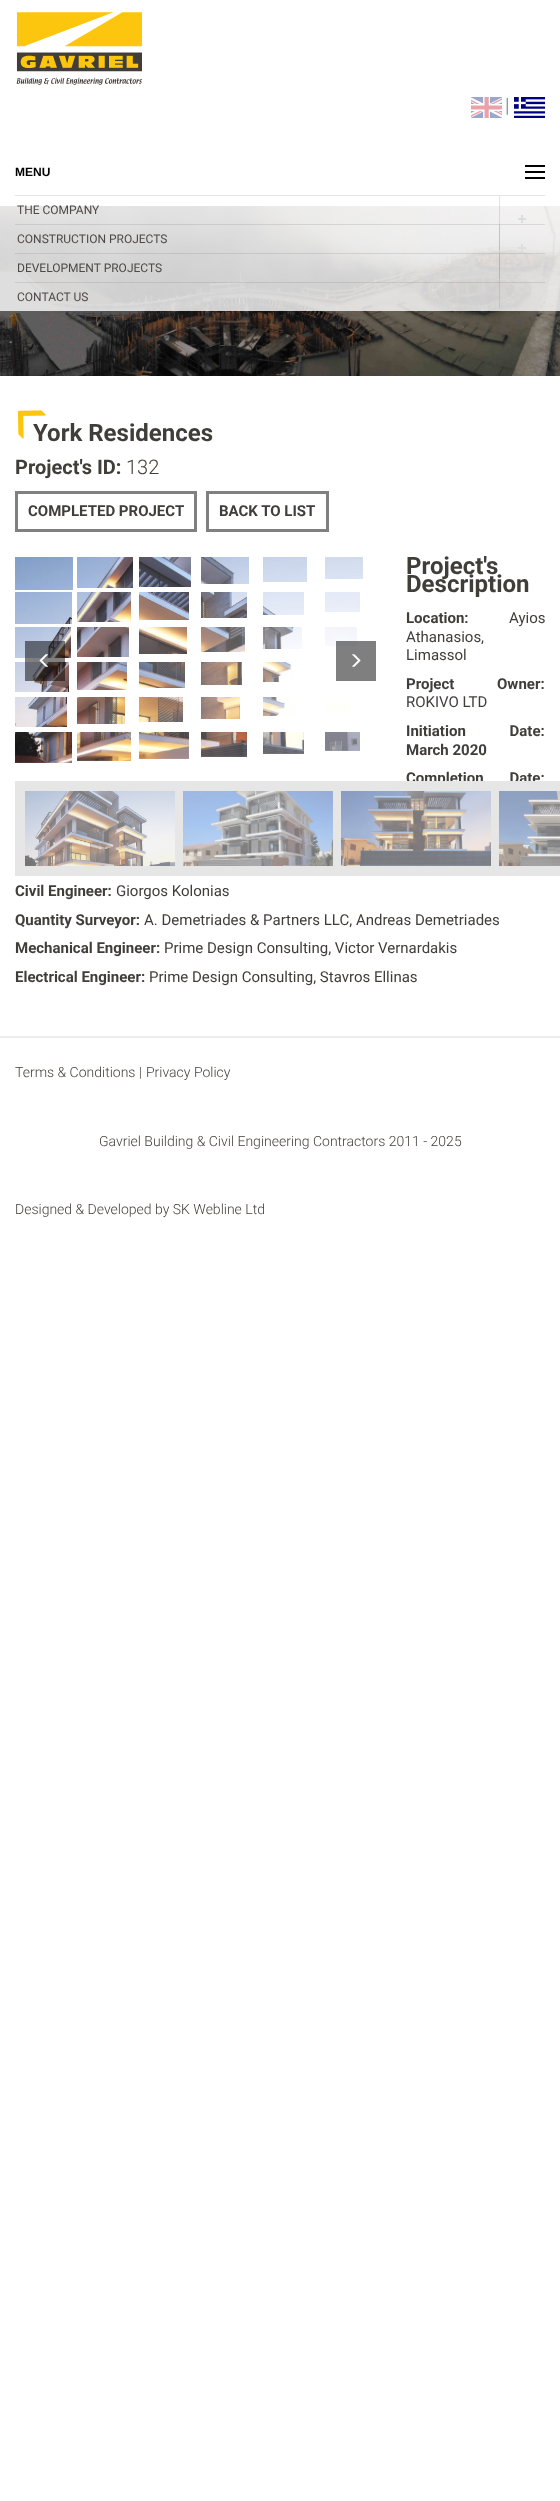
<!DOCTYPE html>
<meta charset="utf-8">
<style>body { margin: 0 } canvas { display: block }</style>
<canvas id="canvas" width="560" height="2501"></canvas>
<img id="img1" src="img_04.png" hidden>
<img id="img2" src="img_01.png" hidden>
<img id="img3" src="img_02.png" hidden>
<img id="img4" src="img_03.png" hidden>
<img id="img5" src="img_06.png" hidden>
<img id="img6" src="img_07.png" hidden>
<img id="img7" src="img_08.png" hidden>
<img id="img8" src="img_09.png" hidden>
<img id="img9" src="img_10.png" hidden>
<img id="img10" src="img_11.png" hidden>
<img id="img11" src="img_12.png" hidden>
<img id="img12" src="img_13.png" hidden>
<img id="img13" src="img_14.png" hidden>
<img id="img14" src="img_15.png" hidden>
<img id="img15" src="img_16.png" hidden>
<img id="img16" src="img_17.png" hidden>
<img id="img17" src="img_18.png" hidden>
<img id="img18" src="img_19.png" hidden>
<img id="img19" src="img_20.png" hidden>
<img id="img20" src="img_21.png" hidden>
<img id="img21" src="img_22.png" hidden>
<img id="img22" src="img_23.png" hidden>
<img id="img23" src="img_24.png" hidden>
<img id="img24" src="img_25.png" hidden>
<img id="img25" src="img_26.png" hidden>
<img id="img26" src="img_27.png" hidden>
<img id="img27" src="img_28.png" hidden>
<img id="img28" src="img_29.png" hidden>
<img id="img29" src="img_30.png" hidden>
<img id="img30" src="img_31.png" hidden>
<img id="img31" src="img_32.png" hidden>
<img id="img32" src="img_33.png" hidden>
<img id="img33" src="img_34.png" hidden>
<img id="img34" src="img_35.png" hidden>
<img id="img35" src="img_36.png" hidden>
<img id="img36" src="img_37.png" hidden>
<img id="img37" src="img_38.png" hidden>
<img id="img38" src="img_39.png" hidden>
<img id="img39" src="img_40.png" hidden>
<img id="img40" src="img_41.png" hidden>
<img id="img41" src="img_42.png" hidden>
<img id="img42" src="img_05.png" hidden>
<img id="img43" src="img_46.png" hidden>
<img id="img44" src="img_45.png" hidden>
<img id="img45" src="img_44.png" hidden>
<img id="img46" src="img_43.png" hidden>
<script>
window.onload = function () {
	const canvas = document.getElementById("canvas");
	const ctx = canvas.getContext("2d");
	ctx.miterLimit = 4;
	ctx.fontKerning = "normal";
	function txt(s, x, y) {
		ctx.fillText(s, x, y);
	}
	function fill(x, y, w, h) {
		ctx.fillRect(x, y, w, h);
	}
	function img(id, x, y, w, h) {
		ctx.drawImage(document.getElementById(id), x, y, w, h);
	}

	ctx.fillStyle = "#FFFFFF";
	fill(0, 0, 560, 2501);
	img("img1", 0, 206, 560, 170);
	ctx.fillStyle = "rgba(255, 255, 255, 0.8)";
	fill(0, 206, 560, 105);
	img("img2", 16, 12, 126, 73);
	img("img3", 471, 97, 31, 21);
	img("img4", 514, 97, 31, 21);
	ctx.fillStyle = "#000000";
	fill(525, 165, 20, 2);
	fill(525, 171, 20, 2);
	fill(525, 177, 20, 2);
	ctx.fillStyle = "#E4E4E4";
	fill(15, 195, 530, 1);
	ctx.fillStyle = "rgba(120, 120, 120, 0.2)";
	fill(15, 224, 530, 1);
	fill(499, 196, 1, 54);
	ctx.fillStyle = "#DDDDDD";
	fill(521, 215, 2, 8);
	fill(518, 218, 8, 2);
	ctx.fillStyle = "rgba(120, 120, 120, 0.2)";
	fill(15, 253, 530, 1);
	fill(499, 225, 1, 54);
	ctx.fillStyle = "#DDDDDD";
	fill(521, 244, 2, 8);
	fill(518, 247, 8, 2);
	ctx.fillStyle = "rgba(120, 120, 120, 0.2)";
	fill(15, 282, 530, 1);
	fill(499, 254, 1, 54);
	ctx.fillStyle = "#DDDDDD";
	fill(521, 273, 2, 8);
	fill(518, 276, 8, 2);
	ctx.strokeStyle = "#808080";
	ctx.lineWidth = 3;
	ctx.strokeRect(16.5, 492.5, 179, 38);
	ctx.strokeRect(207.5, 492.5, 120, 38);
	img("img5", 15, 557, 58, 33);
	img("img6", 77, 557, 56, 31);
	img("img7", 139, 557, 52, 30);
	img("img8", 201, 557, 48, 27);
	img("img9", 263, 557, 44, 25);
	img("img10", 325, 557, 38, 22);
	img("img11", 15, 592, 57, 32);
	img("img12", 77, 592, 54, 30);
	img("img13", 139, 592, 50, 28);
	img("img14", 201, 592, 46, 26);
	img("img15", 263, 592, 41, 23);
	img("img16", 325, 592, 35, 20);
	img("img17", 15, 627, 56, 31);
	img("img18", 77, 627, 52, 30);
	img("img19", 139, 627, 48, 27);
	img("img20", 201, 627, 44, 25);
	img("img21", 263, 627, 39, 22);
	img("img22", 325, 627, 32, 19);
	img("img23", 15, 662, 54, 30);
	img("img24", 77, 662, 50, 28);
	img("img25", 139, 662, 46, 26);
	img("img26", 201, 662, 41, 23);
	img("img27", 263, 662, 30, 20);
	img("img28", 15, 697, 52, 30);
	img("img29", 77, 697, 48, 27);
	img("img30", 139, 697, 44, 25);
	img("img31", 201, 697, 39, 22);
	img("img32", 263, 697, 33, 19);
	img("img33", 325, 702, 26, 10);
	img("img34", 15, 732, 57, 31);
	img("img35", 77, 732, 54, 29);
	img("img36", 139, 732, 50, 27);
	img("img37", 201, 732, 46, 25);
	img("img38", 263, 732, 41, 22);
	img("img39", 325, 732, 35, 19);
	ctx.fillStyle = "rgba(0, 0, 0, 0.5)";
	fill(25, 641, 40, 40);
	img("img40", 39, 654, 9, 13);
	fill(336, 641, 40, 40);
	img("img41", 352, 654, 9, 13);
	ctx.fillStyle = "#EDEDED";
	fill(0, 1036, 560, 2);
	ctx.font = "18px Liberation Sans";
	ctx.fillStyle = "#999999";
	txt("|", 505, 111);
	ctx.font = "bold 12px Liberation Sans";
	ctx.fillStyle = "#000000";
	txt("MENU", 15, 176);
	ctx.font = "12px Roboto";
	ctx.fillStyle = "#4D4946";
	txt("THE COMPANY", 17, 214);
	txt("CONSTRUCTION PROJECTS", 17, 243);
	txt("DEVELOPMENT PROJECTS", 17, 272);
	txt("CONTACT US", 17, 301);
	ctx.font = "bold 24px Roboto";
	ctx.fillStyle = "#413D39";
	txt("York Residences", 33, 441);
	img("img42", 17, 410, 29, 29);
	ctx.font = "bold 20px Roboto";
	txt("Project's ID:", 15, 474);
	ctx.font = "300 20px Roboto";
	txt("132", 126, 474);
	ctx.font = "bold 15px Roboto";
	txt("COMPLETED PROJECT", 28, 516);
	txt("BACK TO LIST", 219, 516);
	ctx.font = "bold 24px Roboto";
	txt("Project's", 406, 574);
	txt("Description", 406, 592);
	ctx.font = "bold 15px Roboto";
	txt("Location:", 406, 623);
	ctx.font = "15px Roboto";
	txt("Ayios", 509, 623);
	txt("Athanasios,", 406, 642);
	txt("Limassol", 406, 660);
	ctx.wordSpacing = "39px";
	ctx.font = "bold 15px Roboto";
	txt("Project Owner:", 406, 689);
	ctx.wordSpacing = "0px";
	ctx.font = "15px Roboto";
	txt("ROKIVO LTD", 406, 707);
	ctx.font = "bold 15px Roboto";
	txt("Initiat", 406, 736);
	ctx.wordSpacing = "40px";
	txt("ion Date:", 445, 736);
	ctx.wordSpacing = "0px";
	txt("March 2020", 406, 755);
	ctx.wordSpacing = "22px";
	txt("Completion Date:", 406, 783);
	ctx.fillStyle = "#E6E6E6";
	fill(15, 781, 545, 95);
	img("img43", 499, 791, 61, 75);
	img("img44", 341, 791, 150, 75);
	img("img45", 183, 791, 150, 75);
	img("img46", 25, 791, 150, 75);
	ctx.wordSpacing = "0px";
	ctx.fillStyle = "#413D39";
	txt("Civil Engineer:", 15, 896);
	ctx.font = "15px Roboto";
	txt("Giorgos Kolonias", 116, 896);
	ctx.font = "bold 15px Roboto";
	txt("Quantity Surveyor:", 15, 925);
	ctx.font = "15px Roboto";
	txt("A. Demetriades & Partners LLC, Andreas Demetriades", 144, 925);
	ctx.font = "bold 15px Roboto";
	txt("Mechanical Engineer:", 15, 953);
	ctx.font = "15px Roboto";
	txt("Prime Design Consulting, Victor Vernardakis", 164, 953);
	ctx.font = "bold 15px Roboto";
	txt("Electrical Engineer:", 15, 982);
	ctx.font = "15px Roboto";
	txt("Prime Design Consulting, Stavros Ellinas", 149, 982);
	ctx.font = "300 14px Roboto";
	txt("Terms & Conditions |", 15, 1077);
	txt("Privacy Policy", 146, 1077);
	txt("Gavriel Building & Civil Engineering Contractors 2011 - 2025", 99, 1146);
	txt("Designed & Developed by SK Webline Ltd", 15, 1214);
};
</script>
